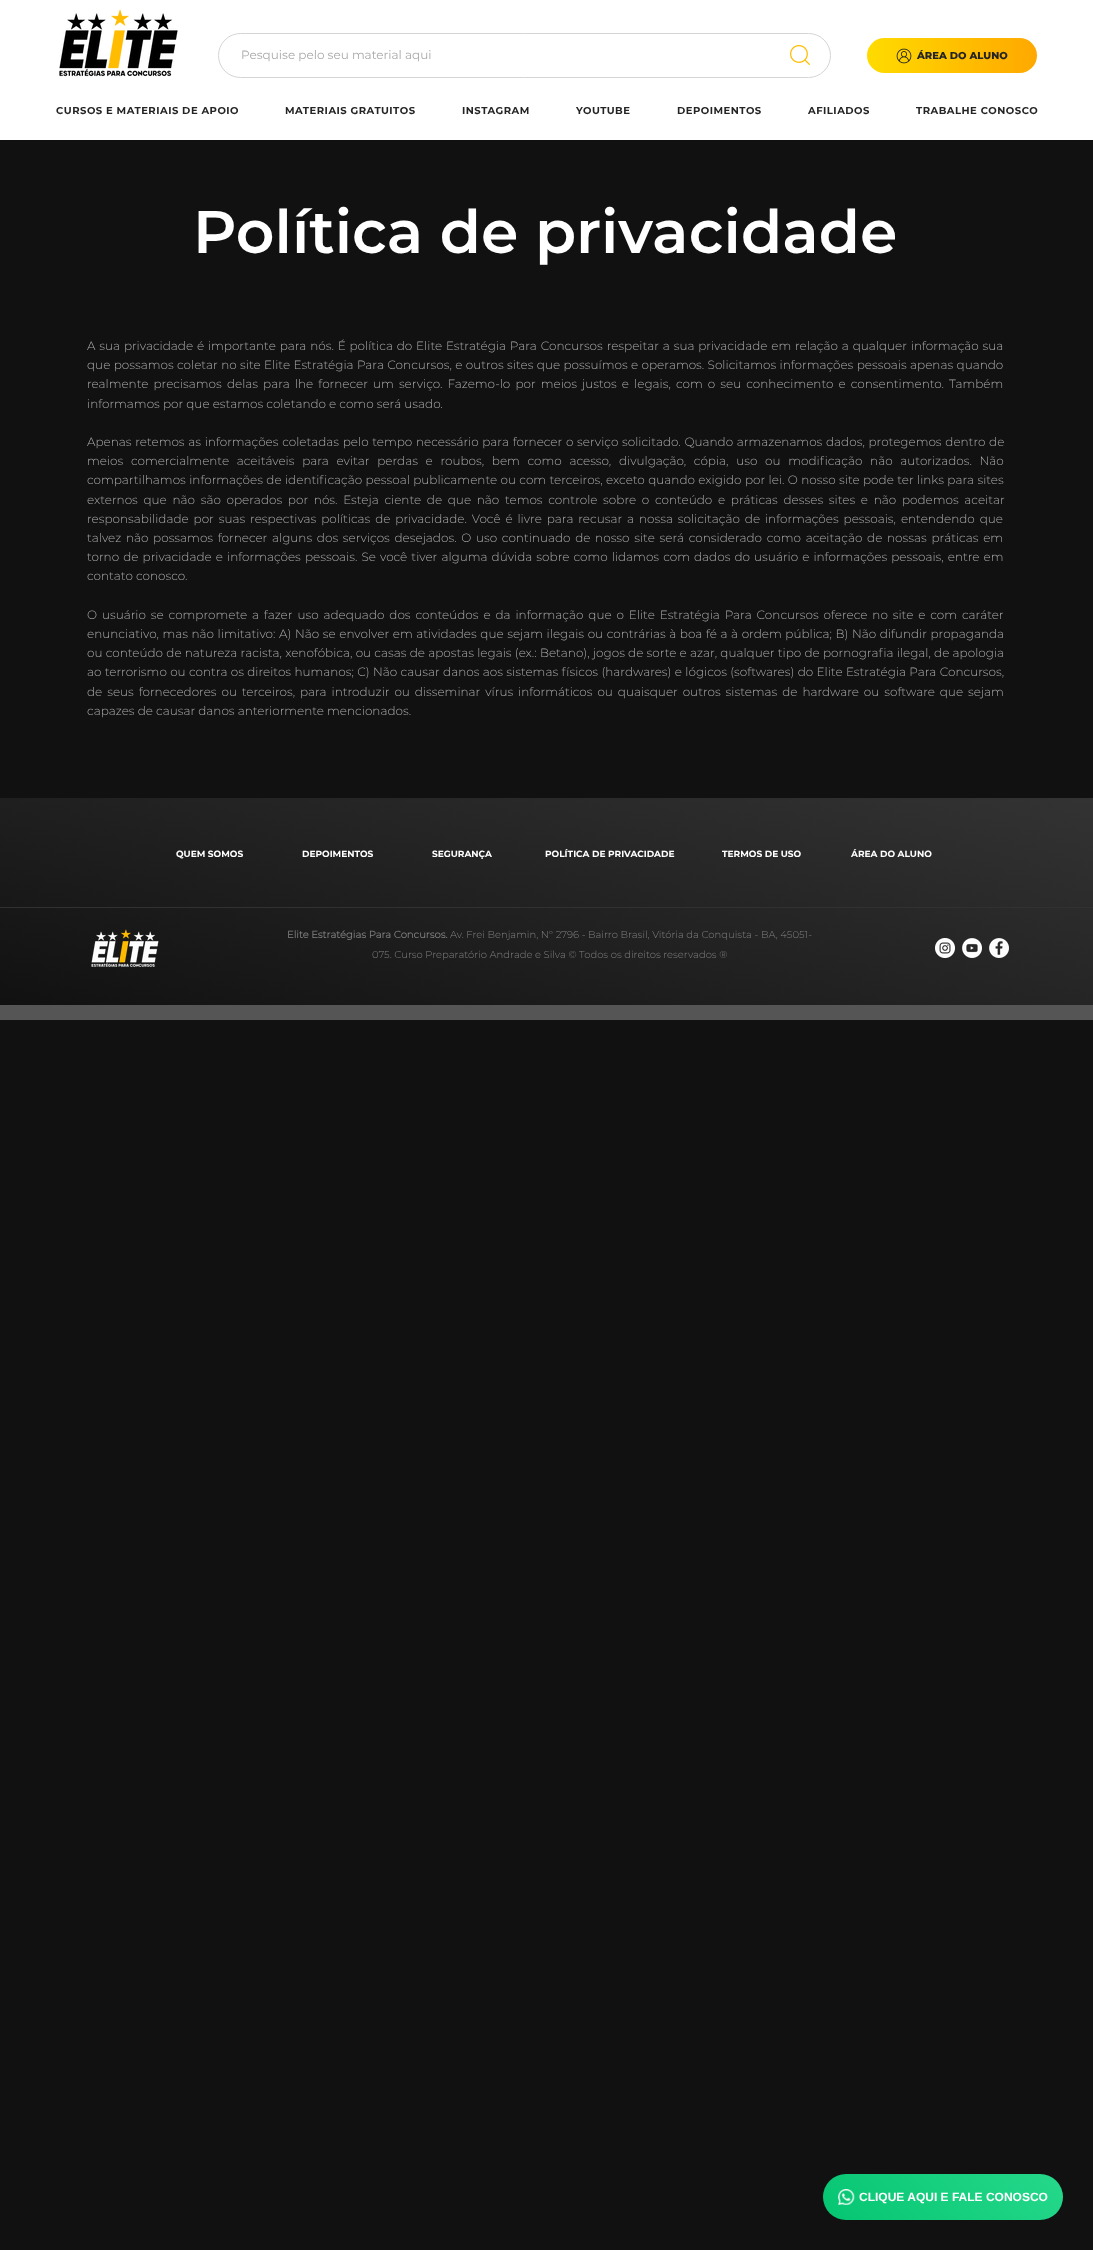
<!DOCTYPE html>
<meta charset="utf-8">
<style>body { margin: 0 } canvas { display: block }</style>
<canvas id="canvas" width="1093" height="2250"></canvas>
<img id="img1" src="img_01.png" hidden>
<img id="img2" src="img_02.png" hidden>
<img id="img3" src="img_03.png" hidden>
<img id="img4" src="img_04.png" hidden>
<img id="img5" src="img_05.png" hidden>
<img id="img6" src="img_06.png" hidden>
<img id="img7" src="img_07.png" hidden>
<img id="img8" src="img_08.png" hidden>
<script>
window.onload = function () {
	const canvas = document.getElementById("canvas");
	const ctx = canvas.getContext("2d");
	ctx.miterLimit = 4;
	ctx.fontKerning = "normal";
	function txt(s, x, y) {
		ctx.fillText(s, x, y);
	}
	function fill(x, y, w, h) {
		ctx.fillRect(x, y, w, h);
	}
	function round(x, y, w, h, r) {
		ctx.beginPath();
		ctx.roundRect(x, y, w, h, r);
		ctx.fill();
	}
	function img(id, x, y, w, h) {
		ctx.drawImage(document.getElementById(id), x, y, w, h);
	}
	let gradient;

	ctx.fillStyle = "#111111";
	fill(0, 0, 1093, 2250);
	ctx.fillStyle = "#FFFFFF";
	fill(0, 0, 1093, 140);
	img("img1", 59, 9, 119, 68);
	gradient = ctx.createLinearGradient(867, 56, 1037, 55);
	gradient.addColorStop(0, "#FFDB00");
	gradient.addColorStop(1, "#FFA800");
	ctx.fillStyle = gradient;
	round(867, 38, 170, 35, 17.5);
	img("img2", 896, 48, 16, 16);
	ctx.beginPath();
	ctx.roundRect(218.5, 33.5, 612, 44, 22);
	ctx.strokeStyle = "#D5D5D5";
	ctx.stroke();
	img("img3", 790, 45, 20, 20);
	gradient = ctx.createLinearGradient(609, 668, 484, 1135);
	gradient.addColorStop(0, "#343333");
	gradient.addColorStop(1, "#111111");
	ctx.fillStyle = gradient;
	fill(0, 798, 1093, 207);
	ctx.fillStyle = "#313131";
	fill(0, 907, 1093, 1);
	img("img4", 91, 929, 68, 38);
	img("img5", 935, 938, 20, 20);
	img("img6", 962, 938, 20, 20);
	img("img7", 989, 938, 20, 20);
	ctx.fillStyle = "#555555";
	fill(0, 1005, 1093, 15);
	gradient = ctx.createLinearGradient(920, 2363, 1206, 2077);
	gradient.addColorStop(0, "#00C26E");
	gradient.addColorStop(1, "#41E8A0");
	ctx.fillStyle = gradient;
	round(823, 2174, 240, 46, 23);
	img("img8", 838, 2189, 17, 16);
	ctx.font = "800 10px Montserrat";
	ctx.fillStyle = "#242424";
	txt("ÁREA DO ALUNO", 917, 59);
	ctx.letterSpacing = "0.5px";
	ctx.font = "bold 10px Montserrat";
	txt("CURSOS E MATERIAIS DE APOIO", 56, 114);
	txt("MATERIAIS GRATUITOS", 285, 114);
	txt("INSTAGRAM", 462, 114);
	txt("YOUTUBE", 576, 114);
	txt("DEPOIMENTOS", 677, 114);
	txt("AFILIADOS", 808, 114);
	txt("TRABALHE CONOSCO", 916, 114);
	ctx.letterSpacing = "0px";
	ctx.font = "12px Montserrat";
	ctx.fillStyle = "#AAAAAA";
	txt("Pesquise pelo seu material aqui", 241, 59);
	ctx.font = "600 60px Montserrat";
	ctx.fillStyle = "#FFFFFF";
	txt("Política de privacidade", 193, 253);
	ctx.wordSpacing = "0.75px";
	ctx.font = "300 12px Montserrat";
	ctx.fillStyle = "#AAAAAA";
	txt("A sua privacidade é importante para nós. É política do Elite Estratégia Para Concursos respeitar a sua privacidade em relação a qualquer informação sua", 87, 350);
	ctx.wordSpacing = "0.3px";
	txt("que possamos coletar no site Elite Estratégia Para Concursos, e outros sites que possuímos e operamos. Solicitamos informações pessoais apenas quando", 87, 369);
	ctx.wordSpacing = "2px";
	txt("realmente precisamos delas para lhe fornecer um serviço. Fazemo-lo por meios justos e legais, com o seu conhecimento e consentimento. Também", 87, 388);
	ctx.wordSpacing = "0px";
	txt("informamos por que estamos coletando e como será usado.", 87, 408);
	ctx.wordSpacing = "0.6px";
	txt("Apenas retemos as informações coletadas pelo tempo necessário para fornecer o serviço solicitado. Quando armazenamos dados, protegemos dentro de", 87, 446);
	ctx.wordSpacing = "4.6px";
	txt("meios comercialmente aceitáveis para evitar perdas e roubos, bem como acesso, divulgação, cópia, uso ou modificação não autorizados. Não", 87, 465);
	ctx.wordSpacing = "0.3px";
	txt("compartilhamos informações de identificação pessoal publicamente ou com terceiros, exceto quando exigido por lei. O nosso site pode ter links para sites", 87, 484);
	ctx.wordSpacing = "2.6px";
	txt("externos que não são operados por nós. Esteja ciente de que não temos controle sobre o conteúdo e práticas desses sites e não podemos aceitar", 87, 504);
	ctx.wordSpacing = "1.8px";
	txt("responsabilidade por suas respectivas políticas de privacidade. Você é livre para recusar a nossa solicitação de informações pessoais, entendendo que", 87, 523);
	ctx.wordSpacing = "1.6px";
	txt("talvez não possamos fornecer alguns dos serviços desejados. O uso continuado de nosso site será considerado como aceitação de nossas práticas em", 87, 542);
	ctx.wordSpacing = "1px";
	txt("torno de privacidade e informações pessoais. Se você tiver alguma dúvida sobre como lidamos com dados do usuário e informações pessoais, entre em", 87, 561);
	ctx.wordSpacing = "0px";
	txt("contato conosco.", 87, 580);
	ctx.wordSpacing = "1.8px";
	txt("O usuário se compromete a fazer uso adequado dos conteúdos e da informação que o Elite Estratégia Para Concursos oferece no site e com caráter", 87, 619);
	ctx.wordSpacing = "0.5px";
	txt("enunciativo, mas não limitativo: A) Não se envolver em atividades que sejam ilegais ou contrárias à boa fé a à ordem pública; B) Não difundir propaganda", 87, 638);
	ctx.wordSpacing = "0.15px";
	txt("ou conteúdo de natureza racista, xenofóbica, ou casas de apostas legais (ex.: Betano), jogos de sorte e azar, qualquer tipo de pornografia ilegal, de apologia", 87, 657);
	ctx.wordSpacing = "0.25px";
	txt("ao terrorismo ou contra os direitos humanos; C) Não causar danos aos sistemas físicos (hardwares) e lógicos (softwares) do Elite Estratégia Para Concursos,", 87, 676);
	ctx.wordSpacing = "1.8px";
	txt("de seus fornecedores ou terceiros, para introduzir ou disseminar vírus informáticos ou quaisquer outros sistemas de hardware ou software que sejam", 87, 696);
	ctx.wordSpacing = "0px";
	txt("capazes de causar danos anteriormente mencionados.", 87, 715);
	ctx.font = "bold 9px Montserrat";
	ctx.fillStyle = "#FFFFFF";
	txt("QUEM SOMOS", 176, 857);
	txt("DEPOIMENTOS", 302, 857);
	txt("SEGURANÇA", 432, 857);
	txt("POLÍTICA DE PRIVACIDADE", 545, 857);
	txt("TERMOS DE USO", 722, 857);
	txt("ÁREA DO ALUNO", 851, 857);
	ctx.font = "bold 10px 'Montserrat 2'";
	ctx.fillStyle = "#808080";
	txt("Elite Estratégias Para Concursos.", 287, 938);
	ctx.font = "300 10px Montserrat";
	txt("Av. Frei Benjamin, N° 2796 - Bairro Brasil, Vitória da Conquista - BA, 45051-", 450, 938);
	txt("075. Curso Preparatório Andrade e Silva © Todos os direitos reservados ®", 372, 958);
	ctx.font = "bold 12px Liberation Sans";
	ctx.fillStyle = "#FFFFFF";
	txt("CLIQUE AQUI E FALE CONOSCO", 859, 2201);
};
</script>
